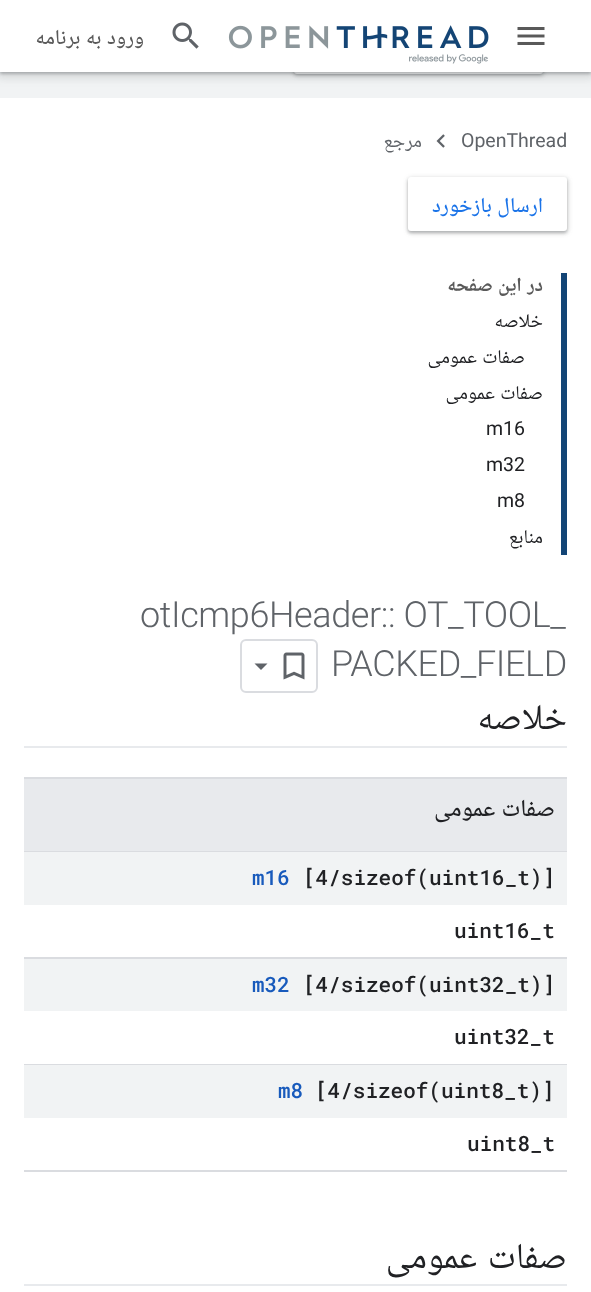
<!DOCTYPE html>
<meta charset="utf-8">
<style>body { margin: 0 } canvas { display: block }</style>
<canvas id="canvas" width="591" height="1292"></canvas>
<img id="img1" src="img_01.png" hidden>
<img id="img2" src="img_02.png" hidden>
<img id="img3" src="img_03.png" hidden>
<img id="img4" src="img_04.png" hidden>
<img id="img5" src="img_05.png" hidden>
<script>
window.onload = function () {
	const canvas = document.getElementById("canvas");
	const ctx = canvas.getContext("2d");
	ctx.miterLimit = 4;
	ctx.fontKerning = "normal";
	function txt(s, x, y) {
		ctx.fillText(s, x, y);
	}
	function fill(x, y, w, h) {
		ctx.fillRect(x, y, w, h);
	}
	function round(x, y, w, h, r) {
		ctx.beginPath();
		ctx.roundRect(x, y, w, h, r);
		ctx.fill();
	}
	function img(id, x, y, w, h) {
		ctx.drawImage(document.getElementById(id), x, y, w, h);
	}

	ctx.fillStyle = "#FFFFFF";
	fill(0, 0, 591, 1292);
	ctx.fillStyle = "#F1F3F4";
	fill(0, 72, 591, 26);
	ctx.fillStyle = "rgba(60, 64, 67, 0.15)";
	ctx.filter = "blur(2px)";
	ctx.beginPath();
	ctx.roundRect(293, 20, 252, 57, 5);
	ctx.fill();
	ctx.filter = "none";
	ctx.fillStyle = "rgba(60, 64, 67, 0.3)";
	ctx.filter = "blur(1.5px)";
	ctx.beginPath();
	ctx.roundRect(294, 21, 249, 54, 3);
	ctx.fill();
	ctx.filter = "none";
	ctx.fillStyle = "#FFFFFF";
	round(294, 20, 249, 54, 3);
	ctx.fillStyle = "rgba(60, 64, 67, 0.15)";
	ctx.filter = "blur(4.5px)";
	ctx.beginPath();
	ctx.rect(-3, -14, 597, 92);
	ctx.fill();
	ctx.filter = "none";
	ctx.fillStyle = "rgba(60, 64, 67, 0.3)";
	ctx.filter = "blur(1.5px)";
	ctx.beginPath();
	ctx.rect(0, -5, 591, 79);
	ctx.fill();
	ctx.filter = "none";
	ctx.fillStyle = "#FFFFFF";
	fill(0, 0, 591, 72);
	img("img1", 172, 22, 27, 27);
	img("img2", 228, 25, 261, 39);
	img("img3", 517, 27, 28, 18);
	img("img4", 436, 134, 9, 14);
	ctx.fillStyle = "rgba(60, 64, 67, 0.15)";
	ctx.filter = "blur(2px)";
	ctx.beginPath();
	ctx.roundRect(407, 177, 162, 57, 5);
	ctx.fill();
	ctx.filter = "none";
	ctx.fillStyle = "rgba(60, 64, 67, 0.3)";
	ctx.filter = "blur(1.5px)";
	ctx.beginPath();
	ctx.roundRect(408, 179, 159, 54, 3);
	ctx.fill();
	ctx.filter = "none";
	ctx.fillStyle = "#FFFFFF";
	round(408, 177, 159, 54, 3);
	ctx.fillStyle = "#134576";
	fill(561, 273, 6, 282);
	ctx.beginPath();
	ctx.roundRect(241, 640, 76, 52, 5);
	ctx.strokeStyle = "#DADCE0";
	ctx.lineWidth = 2;
	ctx.stroke();
	ctx.fillStyle = "#5F6368";
	ctx.beginPath();
	ctx.moveTo(254.5, 663.5);
	ctx.lineTo(267.5, 663.5);
	ctx.lineTo(261, 670);
	ctx.closePath();
	ctx.fill();
	img("img5", 283, 652, 22, 28);
	ctx.fillStyle = "#E8EAED";
	fill(24, 746, 543, 2);
	ctx.fillStyle = "#DADCE0";
	fill(24, 777, 543, 2);
	fill(24, 851, 543, 1);
	ctx.fillStyle = "#E8EAED";
	fill(24, 779, 543, 72);
	ctx.fillStyle = "#DADCE0";
	fill(24, 957, 543, 2);
	ctx.fillStyle = "#F1F3F4";
	fill(24, 852, 543, 53);
	ctx.fillStyle = "#DADCE0";
	fill(24, 1064, 543, 1);
	ctx.fillStyle = "#F1F3F4";
	fill(24, 959, 543, 52);
	ctx.fillStyle = "#DADCE0";
	fill(24, 1170, 543, 2);
	ctx.fillStyle = "#F1F3F4";
	fill(24, 1065, 543, 53);
	ctx.fillStyle = "#E8EAED";
	fill(24, 1284, 543, 2);
	ctx.wordSpacing = "1px";
	ctx.direction = "rtl";
	ctx.font = "500 21px Noto Naskh Arabic";
	ctx.fillStyle = "#595959";
	txt("ورود به برنامه", 144, 44);
	ctx.wordSpacing = "0px";
	ctx.font = "19.5px Noto Naskh Arabic";
	ctx.fillStyle = "#5F6368";
	txt("مرجع", 422, 147);
	ctx.direction = "ltr";
	ctx.font = "19.5px Roboto";
	txt("OpenThread", 461, 147);
	ctx.wordSpacing = "1px";
	ctx.direction = "rtl";
	ctx.font = "500 21px Noto Naskh Arabic";
	ctx.fillStyle = "#1A73E8";
	txt("ارسال بازخورد", 543, 212);
	ctx.font = "bold 19.5px Noto Naskh Arabic";
	ctx.fillStyle = "#595959";
	txt("در این صفحه", 543, 291);
	ctx.wordSpacing = "0px";
	ctx.font = "19.5px Noto Naskh Arabic";
	ctx.fillStyle = "#202124";
	txt("خلاصه", 543, 327);
	ctx.wordSpacing = "1px";
	txt("صفات عمومی", 525, 363);
	txt("صفات عمومی", 543, 399);
	ctx.wordSpacing = "0px";
	ctx.direction = "ltr";
	ctx.font = "19.5px Roboto";
	txt("m16", 486, 435);
	txt("m32", 486, 471);
	txt("m8", 497, 507);
	ctx.direction = "rtl";
	ctx.font = "19.5px Noto Naskh Arabic";
	txt("منابع", 543, 543);
	ctx.letterSpacing = "-0.4px";
	ctx.direction = "ltr";
	ctx.font = "300 36px Roboto";
	ctx.fillStyle = "#5F6368";
	txt("otIcmp6Header:: OT_TOOL_", 140, 627);
	txt("PACKED_FIELD", 331, 676);
	ctx.direction = "rtl";
	ctx.font = "36px Noto Naskh Arabic";
	ctx.fillStyle = "#202124";
	txt("خلاصه", 567, 729);
	ctx.letterSpacing = "0px";
	ctx.wordSpacing = "1px";
	ctx.font = "500 24px Noto Naskh Arabic";
	txt("صفات عمومی", 555, 816);
	ctx.wordSpacing = "0px";
	ctx.direction = "ltr";
	ctx.font = "500 21px Roboto Mono";
	ctx.fillStyle = "#185ABC";
	txt("m16", 252, 885);
	ctx.fillStyle = "#202124";
	txt("[4/sizeof(uint16_t)]", 303, 885);
	txt("uint16_t", 454, 938);
	ctx.fillStyle = "#185ABC";
	txt("m32", 252, 992);
	ctx.fillStyle = "#202124";
	txt("[4/sizeof(uint32_t)]", 303, 992);
	txt("uint32_t", 454, 1044);
	ctx.fillStyle = "#185ABC";
	txt("m8", 278, 1098);
	ctx.fillStyle = "#202124";
	txt("[4/sizeof(uint8_t)]", 315, 1098);
	txt("uint8_t", 467, 1151);
	ctx.letterSpacing = "-0.4px";
	ctx.wordSpacing = "3px";
	ctx.direction = "rtl";
	ctx.font = "36px Noto Naskh Arabic";
	txt("صفات عمومی", 567, 1268);
};
</script>
